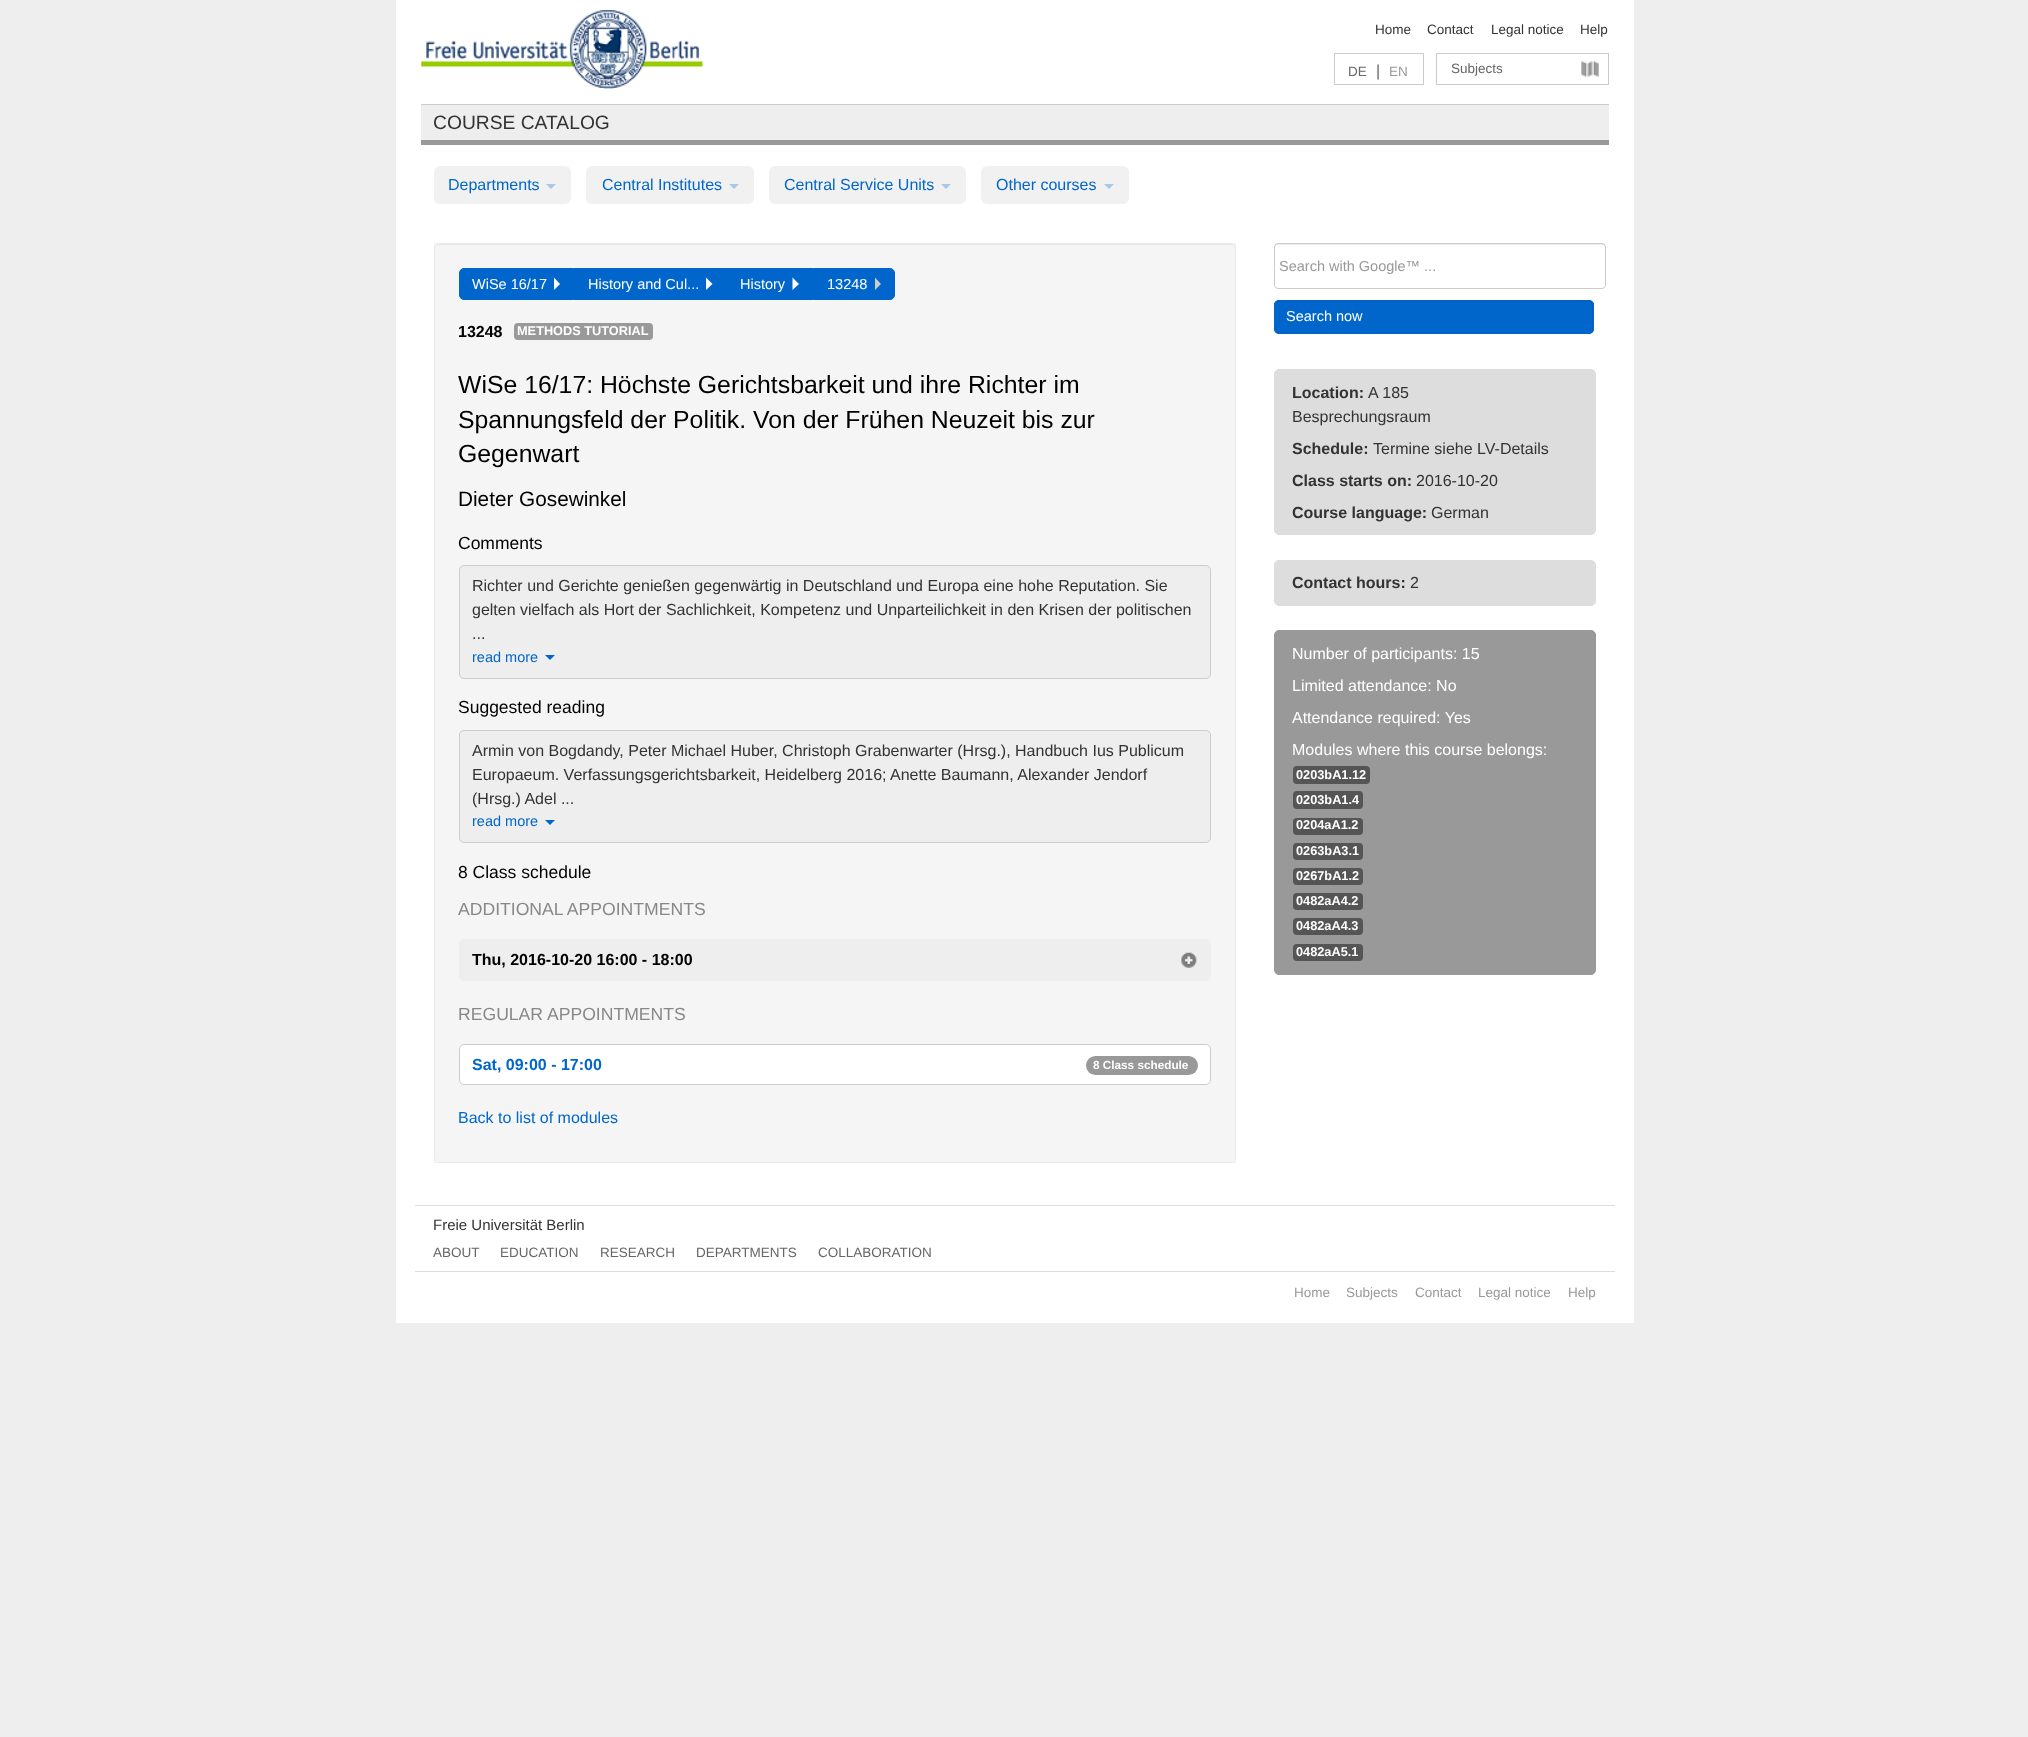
<!DOCTYPE html>
<meta charset="utf-8">
<style>body { margin: 0 } canvas { display: block }</style>
<canvas id="canvas" width="2028" height="1737"></canvas>
<img id="img1" src="img_01.png" hidden>
<img id="img2" src="img_02.png" hidden>
<img id="img3" src="img_03.png" hidden>
<script>
window.onload = function () {
	const canvas = document.getElementById("canvas");
	const ctx = canvas.getContext("2d");
	ctx.miterLimit = 4;
	ctx.fontKerning = "normal";
	function txt(s, x, y) {
		ctx.fillText(s, x, y);
	}
	function fill(x, y, w, h) {
		ctx.fillRect(x, y, w, h);
	}
	function round(x, y, w, h, r) {
		ctx.beginPath();
		ctx.roundRect(x, y, w, h, r);
		ctx.fill();
	}
	function img(id, x, y, w, h) {
		ctx.drawImage(document.getElementById(id), x, y, w, h);
	}

	ctx.fillStyle = "#EEEEEE";
	fill(0, 0, 2028, 1737);
	ctx.fillStyle = "#FFFFFF";
	fill(396, 0, 1238, 1323);
	img("img1", 421, 10, 282, 79);
	ctx.strokeStyle = "#CCCCCC";
	ctx.strokeRect(1334.5, 53.5, 89, 31);
	ctx.strokeRect(1436.5, 53.5, 172, 31);
	img("img2", 1581, 60, 18, 18);
	ctx.fillStyle = "#EEEEEE";
	fill(421, 105, 1188, 35);
	ctx.fillStyle = "#CCCCCC";
	fill(421, 104, 1188, 1);
	ctx.fillStyle = "#999999";
	fill(421, 140, 1188, 5);
	ctx.fillStyle = "#F1F1F1";
	round(434, 166, 137, 38, 6);
	ctx.fillStyle = "#A9C7E6";
	ctx.beginPath();
	ctx.moveTo(546, 184);
	ctx.lineTo(556, 184);
	ctx.lineTo(551, 189);
	ctx.closePath();
	ctx.fill();
	ctx.fillStyle = "#F1F1F1";
	round(586, 166, 168, 38, 6);
	ctx.fillStyle = "#A9C7E6";
	ctx.beginPath();
	ctx.moveTo(729, 184);
	ctx.lineTo(739, 184);
	ctx.lineTo(734, 189);
	ctx.closePath();
	ctx.fill();
	ctx.fillStyle = "#F1F1F1";
	round(769, 166, 197, 38, 6);
	ctx.fillStyle = "#A9C7E6";
	ctx.beginPath();
	ctx.moveTo(941, 184);
	ctx.lineTo(951, 184);
	ctx.lineTo(946, 189);
	ctx.closePath();
	ctx.fill();
	ctx.fillStyle = "#F1F1F1";
	round(981, 166, 148, 38, 6);
	ctx.fillStyle = "#A9C7E6";
	ctx.beginPath();
	ctx.moveTo(1104, 184);
	ctx.lineTo(1114, 184);
	ctx.lineTo(1109, 189);
	ctx.closePath();
	ctx.fill();
	ctx.fillStyle = "#F5F5F5";
	round(434, 243, 802, 920, 5);
	ctx.fillStyle = "#E9E9E9";
	ctx.beginPath();
	ctx.moveTo(439, 245);
	ctx.lineTo(1231, 245);
	ctx.bezierCurveTo(1233, 245, 1235, 247, 1235, 249);
	ctx.bezierCurveTo(1235, 246, 1234, 244, 1231, 244);
	ctx.lineTo(439, 244);
	ctx.bezierCurveTo(436, 244, 435, 246, 435, 249);
	ctx.bezierCurveTo(435, 247, 437, 245, 439, 245);
	ctx.closePath();
	ctx.fill();
	ctx.strokeStyle = "rgba(0, 0, 0, 0.05)";
	ctx.strokeRect(434.5, 243.5, 801, 919);
	ctx.fillStyle = "#0066CC";
	ctx.beginPath();
	ctx.roundRect(459.5, 268.5, 114, 31, [4.5, 0, 0, 4.5]);
	ctx.fill();
	ctx.strokeStyle = "#0066CC";
	ctx.stroke();
	ctx.fillStyle = "#FFFFFF";
	ctx.beginPath();
	ctx.moveTo(554, 290);
	ctx.lineTo(554, 277.5);
	ctx.lineTo(560, 284);
	ctx.closePath();
	ctx.fill();
	ctx.fillStyle = "#0066CC";
	fill(574, 268, 239, 32);
	ctx.fillStyle = "#FFFFFF";
	ctx.beginPath();
	ctx.moveTo(706, 290);
	ctx.lineTo(706, 277.5);
	ctx.lineTo(712.5, 284);
	ctx.closePath();
	ctx.fill();
	ctx.beginPath();
	ctx.moveTo(792.5, 290);
	ctx.lineTo(792.5, 277.5);
	ctx.lineTo(799, 284);
	ctx.closePath();
	ctx.fill();
	ctx.fillStyle = "#0066CC";
	ctx.beginPath();
	ctx.roundRect(813.5, 268.5, 81, 31, [0, 4.5, 4.5, 0]);
	ctx.fill();
	ctx.stroke();
	ctx.fillStyle = "#CCCCCC";
	ctx.beginPath();
	ctx.moveTo(875, 290);
	ctx.lineTo(875, 277.5);
	ctx.lineTo(881, 284);
	ctx.closePath();
	ctx.fill();
	ctx.fillStyle = "#999999";
	round(514, 323, 139, 17, 4);
	ctx.fillStyle = "#EEEEEE";
	ctx.beginPath();
	ctx.roundRect(459.5, 565.5, 751, 113, 4.5);
	ctx.fill();
	ctx.strokeStyle = "#CCCCCC";
	ctx.stroke();
	ctx.fillStyle = "#0066CC";
	ctx.beginPath();
	ctx.moveTo(545, 655);
	ctx.lineTo(555, 655);
	ctx.lineTo(550, 660);
	ctx.closePath();
	ctx.fill();
	ctx.fillStyle = "#EEEEEE";
	ctx.beginPath();
	ctx.roundRect(459.5, 730.5, 751, 112, 4.5);
	ctx.fill();
	ctx.stroke();
	ctx.fillStyle = "#0066CC";
	ctx.beginPath();
	ctx.moveTo(545, 820);
	ctx.lineTo(555, 820);
	ctx.lineTo(550, 825);
	ctx.closePath();
	ctx.fill();
	ctx.fillStyle = "#EEEEEE";
	round(459, 939, 752, 42, 5);
	img("img3", 1181, 952, 16, 16);
	ctx.fillStyle = "#FFFFFF";
	ctx.beginPath();
	ctx.roundRect(459.5, 1044.5, 751, 40, 4.5);
	ctx.fill();
	ctx.stroke();
	ctx.fillStyle = "#999999";
	round(1086, 1056, 112, 19, 9.5);
	ctx.fillStyle = "#ECECEC";
	ctx.beginPath();
	ctx.moveTo(1278, 245);
	ctx.lineTo(1602, 245);
	ctx.bezierCurveTo(1604, 245, 1605, 246, 1605, 248);
	ctx.lineTo(1605, 246);
	ctx.bezierCurveTo(1605, 245, 1604, 244, 1602, 244);
	ctx.lineTo(1278, 244);
	ctx.bezierCurveTo(1276, 244, 1275, 245, 1275, 246);
	ctx.lineTo(1275, 248);
	ctx.bezierCurveTo(1275, 246, 1276, 245, 1278, 245);
	ctx.closePath();
	ctx.fill();
	ctx.beginPath();
	ctx.roundRect(1274.5, 243.5, 331, 45, 3.5);
	ctx.stroke();
	ctx.fillStyle = "#0066CC";
	round(1274, 300, 320, 34, 5);
	ctx.fillStyle = "#005EBD";
	ctx.beginPath();
	ctx.moveTo(1279, 302);
	ctx.lineTo(1589, 302);
	ctx.bezierCurveTo(1594, 302, 1592, 312, 1592, 314);
	ctx.lineTo(1592, 332);
	ctx.bezierCurveTo(1592, 331, 1593, 330, 1593, 329);
	ctx.lineTo(1593, 305);
	ctx.bezierCurveTo(1593, 303, 1591, 301, 1589, 301);
	ctx.lineTo(1279, 301);
	ctx.bezierCurveTo(1277, 301, 1275, 303, 1275, 305);
	ctx.lineTo(1275, 306);
	ctx.bezierCurveTo(1275, 304, 1277, 302, 1279, 302);
	ctx.closePath();
	ctx.fill();
	ctx.beginPath();
	ctx.roundRect(1274.5, 300.5, 319, 33, 4.5);
	ctx.strokeStyle = "#0066CC";
	ctx.stroke();
	ctx.fillStyle = "#DDDDDD";
	ctx.beginPath();
	ctx.roundRect(1274.5, 369.5, 321, 165, 4.5);
	ctx.fill();
	ctx.strokeStyle = "#DDDDDD";
	ctx.stroke();
	ctx.beginPath();
	ctx.roundRect(1274.5, 560.5, 321, 45, 4.5);
	ctx.fill();
	ctx.stroke();
	ctx.fillStyle = "#999999";
	ctx.beginPath();
	ctx.roundRect(1274.5, 630.5, 321, 344, 4.5);
	ctx.fill();
	ctx.strokeStyle = "#999999";
	ctx.stroke();
	ctx.fillStyle = "#555555";
	round(1293, 766, 77, 18, 4);
	round(1293, 791, 70, 18, 4);
	round(1293, 818, 70, 17, 4);
	round(1293, 843, 70, 17, 4);
	round(1293, 868, 70, 17, 4);
	round(1293, 893, 70, 17, 4);
	round(1293, 918, 70, 17, 4);
	round(1293, 944, 70, 17, 4);
	ctx.fillStyle = "#DDDDDD";
	fill(415, 1205, 1200, 1);
	fill(415, 1271, 1200, 1);
	ctx.font = "13.5px Liberation Sans";
	ctx.fillStyle = "#333333";
	txt("Home", 1375, 34);
	txt("Contact", 1427, 34);
	txt("Legal notice", 1491, 34);
	txt("Help", 1580, 34);
	ctx.fillStyle = "#666666";
	txt("DE", 1348, 76);
	ctx.font = "16px Liberation Sans";
	txt("|", 1376, 76);
	ctx.font = "13.5px Liberation Sans";
	ctx.fillStyle = "#999999";
	txt("EN", 1389, 76);
	ctx.fillStyle = "#666666";
	txt("Subjects", 1451, 73);
	ctx.font = "19.25px Liberation Sans";
	ctx.fillStyle = "#333333";
	txt("COURSE CATALOG", 433, 129);
	ctx.font = "16px Liberation Sans";
	ctx.fillStyle = "#0066CC";
	txt("Departments", 448, 190);
	txt("Central Institutes", 602, 190);
	txt("Central Service Units", 784, 190);
	txt("Other courses", 996, 190);
	ctx.font = "14.5px Liberation Sans";
	ctx.fillStyle = "#FFFFFF";
	txt("WiSe 16/17", 472, 289);
	txt("History and Cul...", 588, 289);
	txt("History", 740, 289);
	txt("13248", 827, 289);
	ctx.font = "bold 16px Liberation Sans";
	ctx.fillStyle = "#000000";
	txt("13248", 458, 337);
	ctx.font = "bold 12.75px Liberation Sans";
	ctx.fillStyle = "#FFFFFF";
	txt("METHODS TUTORIAL", 517, 335);
	ctx.font = "24.8px Liberation Sans";
	ctx.fillStyle = "#000000";
	txt("WiSe 16/17: Höchste Gerichtsbarkeit und ihre Richter im", 458, 393);
	txt("Spannungsfeld der Politik. Von der Frühen Neuzeit bis zur", 458, 428);
	txt("Gegenwart", 458, 462);
	ctx.font = "20.75px Liberation Sans";
	txt("Dieter Gosewinkel", 458, 506);
	ctx.font = "17.5px Liberation Sans";
	txt("Comments", 458, 549);
	ctx.font = "16px Liberation Sans";
	ctx.fillStyle = "#333333";
	txt("Richter und Gerichte genießen gegenwärtig in Deutschland und Europa eine hohe Reputation. Sie", 472, 591);
	txt("gelten vielfach als Hort der Sachlichkeit, Kompetenz und Unparteilichkeit in den Krisen der politischen", 472, 615);
	txt("...", 472, 639);
	ctx.font = "14.5px Liberation Sans";
	ctx.fillStyle = "#0066CC";
	txt("read more", 472, 662);
	ctx.font = "17.5px Liberation Sans";
	ctx.fillStyle = "#000000";
	txt("Suggested reading", 458, 713);
	ctx.font = "16px Liberation Sans";
	ctx.fillStyle = "#333333";
	txt("Armin von Bogdandy, Peter Michael Huber, Christoph Grabenwarter (Hrsg.), Handbuch Ius Publicum", 472, 756);
	txt("Europaeum. Verfassungsgerichtsbarkeit, Heidelberg 2016; Anette Baumann, Alexander Jendorf", 472, 780);
	txt("(Hrsg.) Adel ...", 472, 804);
	ctx.font = "14.5px Liberation Sans";
	ctx.fillStyle = "#0066CC";
	txt("read more", 472, 826);
	ctx.font = "17.5px Liberation Sans";
	ctx.fillStyle = "#000000";
	txt("8 Class schedule", 458, 878);
	ctx.font = "17.6px Liberation Sans";
	ctx.fillStyle = "#888888";
	txt("ADDITIONAL APPOINTMENTS", 458, 915);
	ctx.font = "bold 16px Liberation Sans";
	ctx.fillStyle = "#000000";
	txt("Thu, 2016-10-20 16:00 - 18:00", 472, 965);
	ctx.font = "17.6px Liberation Sans";
	ctx.fillStyle = "#888888";
	txt("REGULAR APPOINTMENTS", 458, 1020);
	ctx.font = "bold 16px Liberation Sans";
	ctx.fillStyle = "#0066CC";
	txt("Sat, 09:00 - 17:00", 472, 1070);
	ctx.font = "bold 11.75px Liberation Sans";
	ctx.fillStyle = "#FFFFFF";
	txt("8 Class schedule", 1093, 1069);
	ctx.font = "16px Liberation Sans";
	ctx.fillStyle = "#0066CC";
	txt("Back to list of modules", 458, 1123);
	ctx.font = "14.5px Liberation Sans";
	ctx.fillStyle = "#999999";
	txt("Search with Google™ ...", 1279, 271);
	ctx.fillStyle = "#FFFFFF";
	txt("Search now", 1286, 321);
	ctx.font = "bold 16px Liberation Sans";
	ctx.fillStyle = "#333333";
	txt("Location:", 1292, 398);
	ctx.font = "16px Liberation Sans";
	txt("A 185", 1368, 398);
	txt("Besprechungsraum", 1292, 422);
	ctx.font = "bold 16px Liberation Sans";
	txt("Schedule:", 1292, 454);
	ctx.font = "16px Liberation Sans";
	txt("Termine siehe LV-Details", 1373, 454);
	ctx.font = "bold 16px Liberation Sans";
	txt("Class starts on:", 1292, 486);
	ctx.font = "16px Liberation Sans";
	txt("2016-10-20", 1416, 486);
	ctx.font = "bold 16px Liberation Sans";
	txt("Course language:", 1292, 518);
	ctx.font = "16px Liberation Sans";
	txt("German", 1431, 518);
	ctx.font = "bold 16px Liberation Sans";
	txt("Contact hours:", 1292, 588);
	ctx.font = "16px Liberation Sans";
	txt("2", 1410, 588);
	ctx.fillStyle = "#FFFFFF";
	txt("Number of participants: 15", 1292, 659);
	txt("Limited attendance: No", 1292, 691);
	txt("Attendance required: Yes", 1292, 723);
	txt("Modules where this course belongs:", 1292, 755);
	ctx.font = "bold 12.75px Liberation Sans";
	txt("0203bA1.12", 1296, 779);
	txt("0203bA1.4", 1296, 804);
	txt("0204aA1.2", 1296, 829);
	txt("0263bA3.1", 1296, 855);
	txt("0267bA1.2", 1296, 880);
	txt("0482aA4.2", 1296, 905);
	txt("0482aA4.3", 1296, 930);
	txt("0482aA5.1", 1296, 956);
	ctx.font = "15px Liberation Sans";
	ctx.fillStyle = "#333333";
	txt("Freie Universität Berlin", 433, 1230);
	ctx.font = "13.5px Liberation Sans";
	ctx.fillStyle = "#666666";
	txt("ABOUT", 433, 1257);
	txt("EDUCATION", 500, 1257);
	txt("RESEARCH", 600, 1257);
	txt("DEPARTMENTS", 696, 1257);
	txt("COLLABORATION", 818, 1257);
	ctx.fillStyle = "#999999";
	txt("Home", 1294, 1297);
	txt("Subjects", 1346, 1297);
	txt("Contact", 1415, 1297);
	txt("Legal notice", 1478, 1297);
	txt("Help", 1568, 1297);
};
</script>
